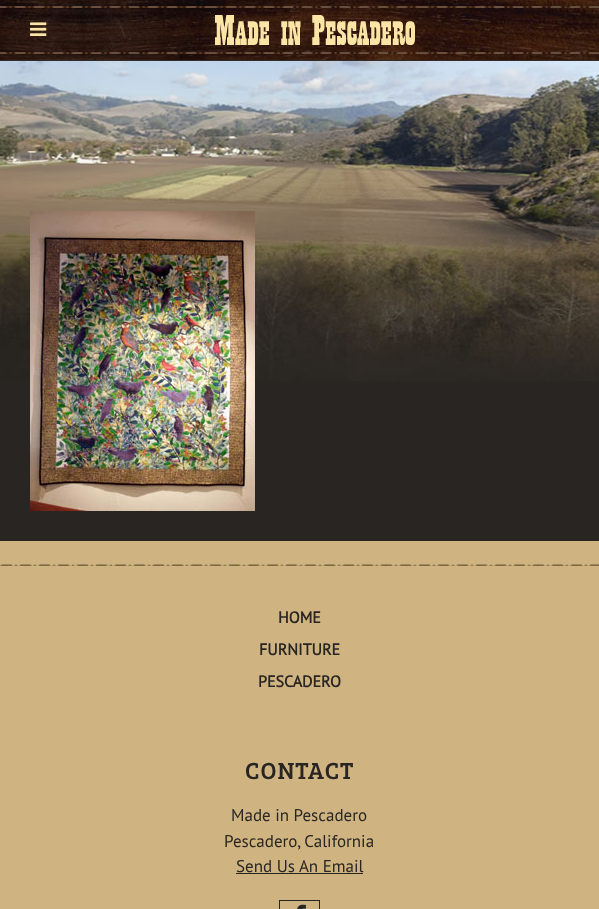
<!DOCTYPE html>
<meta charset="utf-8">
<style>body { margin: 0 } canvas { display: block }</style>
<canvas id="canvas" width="599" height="909"></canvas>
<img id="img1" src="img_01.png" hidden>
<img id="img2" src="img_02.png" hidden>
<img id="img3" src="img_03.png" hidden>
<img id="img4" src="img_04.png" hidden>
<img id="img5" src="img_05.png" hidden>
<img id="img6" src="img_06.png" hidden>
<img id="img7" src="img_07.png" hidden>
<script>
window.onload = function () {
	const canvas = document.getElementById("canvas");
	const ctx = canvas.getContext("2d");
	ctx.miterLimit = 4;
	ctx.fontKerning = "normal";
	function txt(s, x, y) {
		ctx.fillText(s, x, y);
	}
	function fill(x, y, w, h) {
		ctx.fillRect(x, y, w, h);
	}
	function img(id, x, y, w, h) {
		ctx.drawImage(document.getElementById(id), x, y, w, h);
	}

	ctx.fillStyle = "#282522";
	fill(0, 0, 599, 909);
	img("img1", 0, 0, 599, 60);
	ctx.fillStyle = "#322E2B";
	fill(0, 60, 599, 1);
	img("img2", 30, 22, 17, 14);
	img("img3", 215, 15, 200, 30);
	img("img4", 0, 61, 599, 320);
	img("img5", 30, 211, 225, 300);
	ctx.fillStyle = "#CFB481";
	fill(0, 541, 599, 368);
	img("img6", 0, 564, 599, 2);
	ctx.fillStyle = "#282522";
	fill(236, 873, 127, 1);
	ctx.strokeStyle = "#282522";
	ctx.strokeRect(279.5, 900.5, 40, 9);
	img("img7", 297, 904, 9, 5);
	ctx.font = "bold 16px PT Sans";
	txt("HOME", 278, 623);
	txt("FURNITURE", 259, 655);
	txt("PESCADERO", 258, 687);
	ctx.letterSpacing = "1px";
	ctx.font = "24px Bree Serif";
	txt("CONTACT", 245, 779);
	ctx.letterSpacing = "0px";
	ctx.font = "17px PT Sans";
	txt("Made in Pescadero", 231, 821);
	txt("Pescadero, California", 224, 847);
	txt("Send Us An Email", 236, 872);
};
</script>
